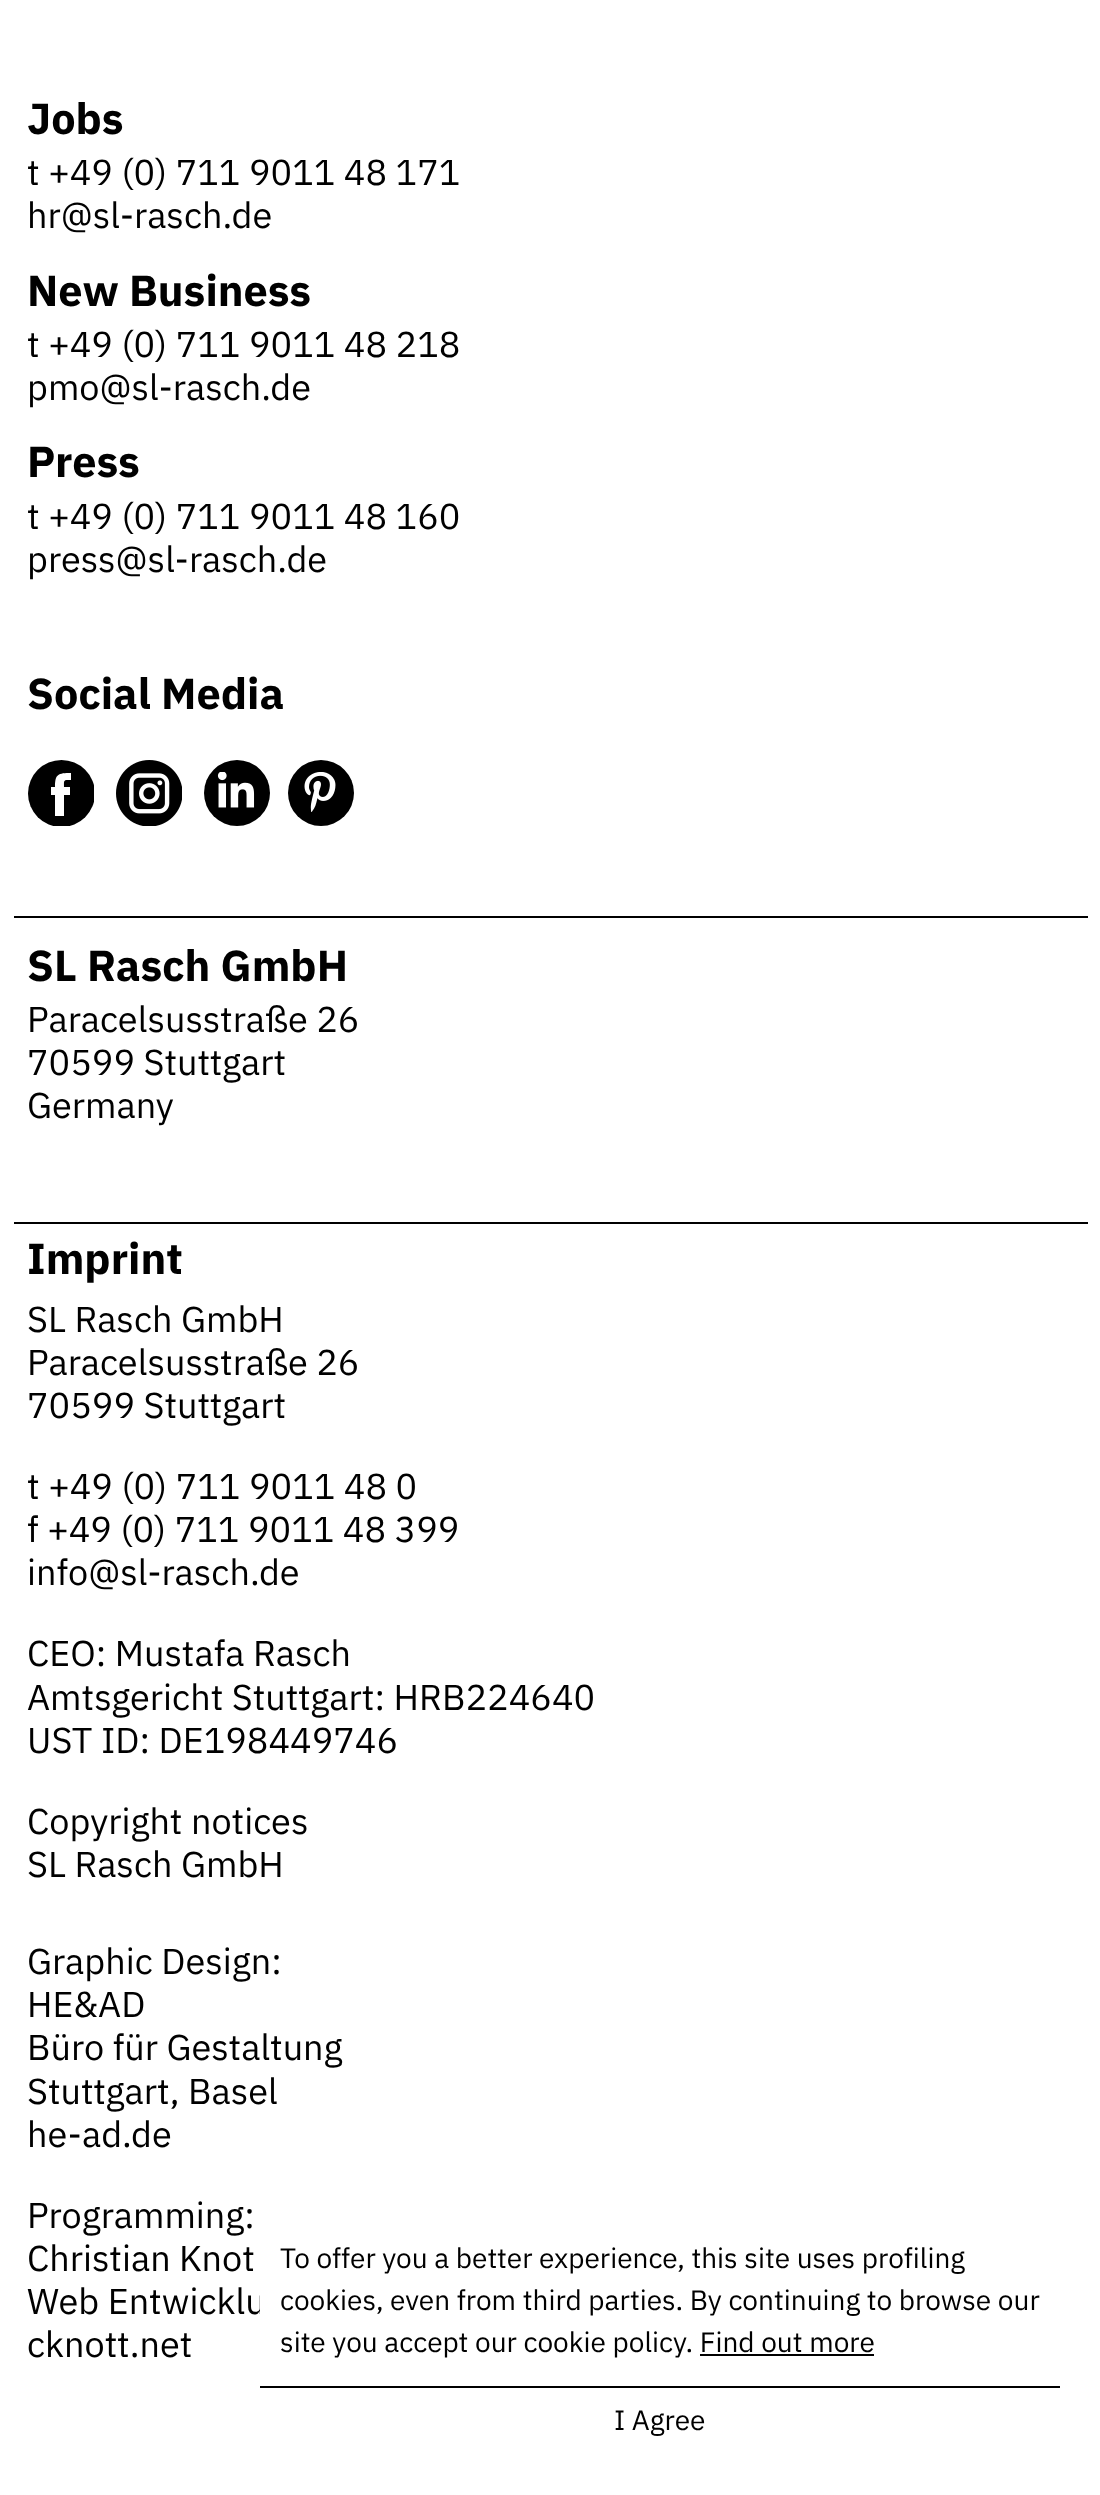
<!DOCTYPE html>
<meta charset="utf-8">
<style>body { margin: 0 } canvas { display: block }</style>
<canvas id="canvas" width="1100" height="2495"></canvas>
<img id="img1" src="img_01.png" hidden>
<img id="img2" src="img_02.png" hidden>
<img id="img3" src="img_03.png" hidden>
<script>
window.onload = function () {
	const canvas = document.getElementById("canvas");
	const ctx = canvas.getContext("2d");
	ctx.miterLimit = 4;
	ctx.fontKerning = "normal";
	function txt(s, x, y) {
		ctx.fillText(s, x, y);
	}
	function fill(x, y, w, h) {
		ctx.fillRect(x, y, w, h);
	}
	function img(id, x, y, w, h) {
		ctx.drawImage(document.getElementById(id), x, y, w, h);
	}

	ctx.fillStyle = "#FFFFFF";
	fill(0, 0, 1100, 2495);
	ctx.save();
	ctx.beginPath();
	ctx.rect(28, 760, 66, 66);
	ctx.clip();
	ctx.fillStyle = "#000000";
	ctx.beginPath();
	ctx.arc(61.5, 793.5, 33.5, 0, Math.PI * 2);
	ctx.fill();
	ctx.restore();
	ctx.beginPath();
	ctx.moveTo(70, 795);
	ctx.lineTo(64, 795);
	ctx.lineTo(64, 816);
	ctx.lineTo(55, 816);
	ctx.lineTo(55, 795);
	ctx.lineTo(51, 795);
	ctx.lineTo(51, 787);
	ctx.lineTo(55, 787);
	ctx.bezierCurveTo(55, 774, 58, 773, 71, 773);
	ctx.lineTo(71, 780);
	ctx.bezierCurveTo(63, 780, 64, 780, 64, 787);
	ctx.lineTo(70, 787);
	ctx.closePath();
	ctx.fill();
	img("img1", 116, 760, 66, 66);
	ctx.fillStyle = "#000000";
	ctx.beginPath();
	ctx.arc(237, 793, 33, 0, Math.PI * 2);
	ctx.fill();
	img("img2", 217, 772, 38, 36);
	ctx.beginPath();
	ctx.arc(321, 793, 33, 0, Math.PI * 2);
	ctx.fill();
	img("img3", 304, 772, 32, 40);
	fill(14, 916, 1074, 2);
	fill(14, 1222, 1074, 2);
	fill(700, 2354, 174, 2);
	fill(260, 2386, 800, 2);
	ctx.font = "bold 43.25px IBM Plex Sans";
	txt("Jobs", 27, 134);
	ctx.font = "36px IBM Plex Sans";
	txt("t +49 (0) 711 9011 48 171", 27, 185);
	txt("hr@sl-rasch.de", 27, 228);
	ctx.font = "bold 43.25px IBM Plex Sans";
	txt("New Business", 27, 306);
	ctx.font = "36px IBM Plex Sans";
	txt("t +49 (0) 711 9011 48 218", 27, 357);
	txt("pmo@sl-rasch.de", 27, 400);
	ctx.font = "bold 43.25px IBM Plex Sans";
	txt("Press", 27, 477);
	ctx.font = "36px IBM Plex Sans";
	txt("t +49 (0) 711 9011 48 160", 27, 529);
	txt("press@sl-rasch.de", 27, 572);
	ctx.font = "bold 43.25px IBM Plex Sans";
	txt("Social Media", 27, 709);
	txt("SL Rasch GmbH", 27, 981);
	ctx.font = "36px IBM Plex Sans";
	txt("Paracelsusstraße 26", 27, 1032);
	txt("70599 Stuttgart", 27, 1075);
	txt("Germany", 27, 1118);
	ctx.font = "bold 43.25px IBM Plex Sans";
	txt("Imprint", 27, 1274);
	ctx.font = "36px IBM Plex Sans";
	txt("SL Rasch GmbH", 27, 1332);
	txt("Paracelsusstraße 26", 27, 1375);
	txt("70599 Stuttgart", 27, 1418);
	txt("t +49 (0) 711 9011 48 0", 27, 1499);
	txt("f +49 (0) 711 9011 48 399", 27, 1542);
	txt("info@sl-rasch.de", 27, 1585);
	txt("CEO: Mustafa Rasch", 27, 1666);
	txt("Amtsgericht Stuttgart: HRB224640", 27, 1710);
	txt("UST ID: DE198449746", 27, 1753);
	txt("Copyright notices", 27, 1834);
	txt("SL Rasch GmbH", 27, 1877);
	txt("Graphic Design:", 27, 1974);
	txt("HE&AD", 27, 2017);
	txt("Büro für Gestaltung", 27, 2060);
	txt("Stuttgart, Basel", 27, 2104);
	txt("he-ad.de", 27, 2147);
	txt("Programming:", 27, 2228);
	txt("Christian Knot", 27, 2271);
	txt("Web Entwicklu", 27, 2314);
	txt("cknott.net", 27, 2357);
	ctx.fillStyle = "#FFFFFF";
	fill(260, 2295, 3, 19);
	ctx.font = "28px IBM Plex Sans";
	ctx.fillStyle = "#000000";
	txt("To offer you a better experience, this site uses profiling", 280, 2268);
	txt("cookies, even from third parties. By continuing to browse our", 280, 2310);
	txt("site you accept our cookie policy. Find out more", 280, 2352);
	txt("I Agree", 614, 2430);
};
</script>
